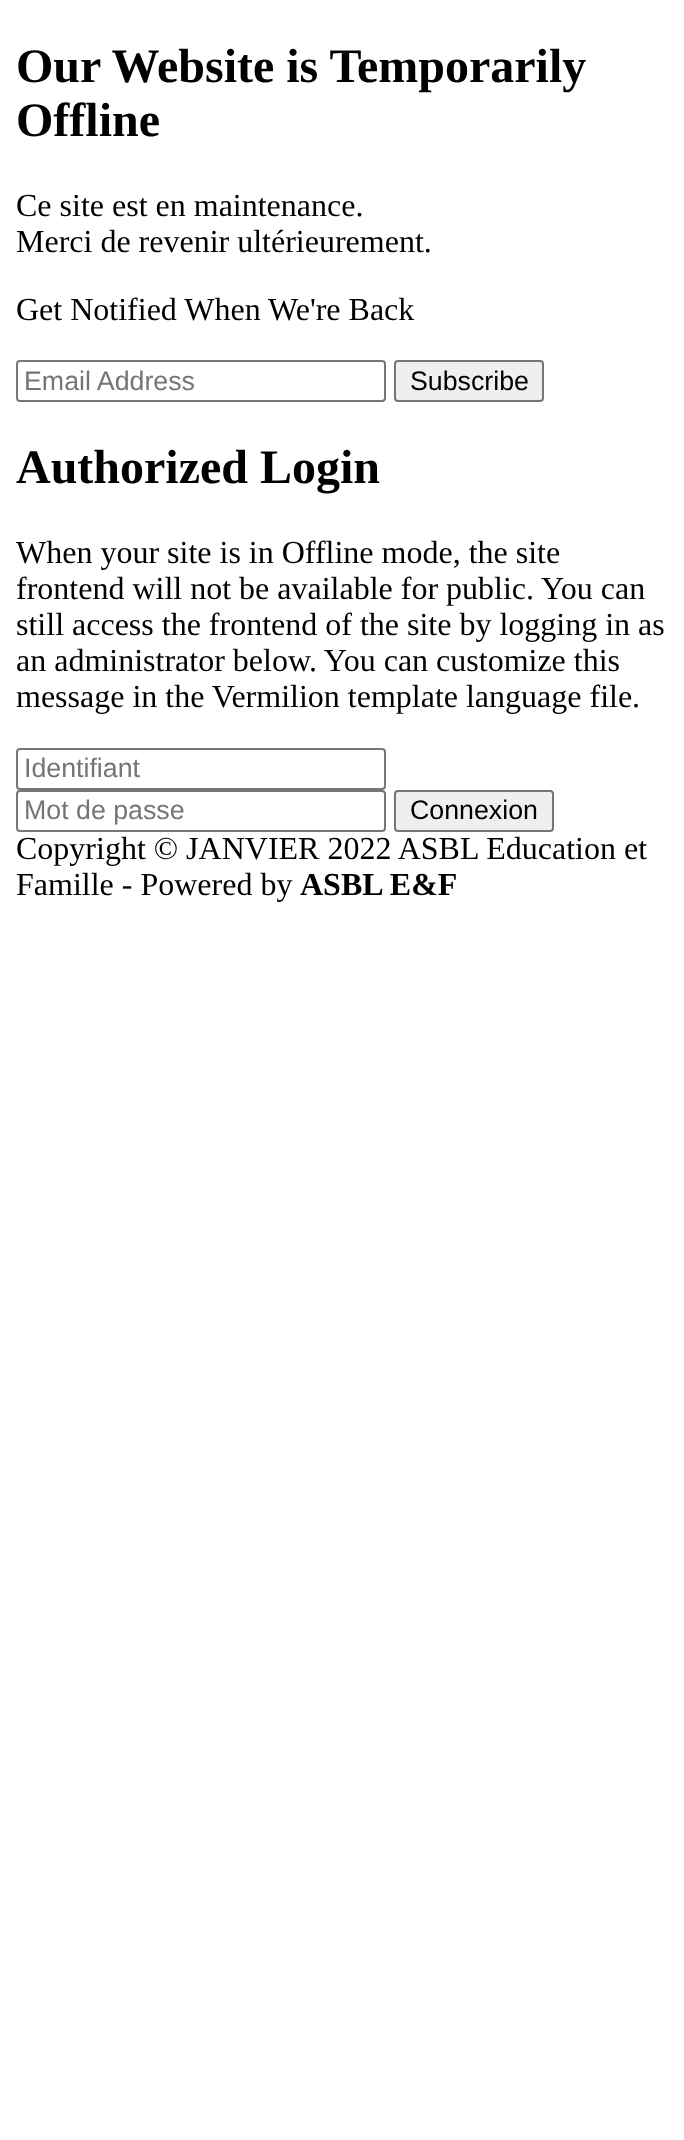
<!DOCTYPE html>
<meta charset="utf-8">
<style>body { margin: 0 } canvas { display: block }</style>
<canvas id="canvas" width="684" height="2140"></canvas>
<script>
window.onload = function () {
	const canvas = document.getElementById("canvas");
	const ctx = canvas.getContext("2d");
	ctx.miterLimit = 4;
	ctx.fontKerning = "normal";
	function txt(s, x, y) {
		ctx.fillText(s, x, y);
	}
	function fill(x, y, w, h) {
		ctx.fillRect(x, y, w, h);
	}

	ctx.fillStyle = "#FFFFFF";
	fill(0, 0, 684, 2140);
	ctx.beginPath();
	ctx.roundRect(17, 361, 368, 40, 3);
	ctx.strokeStyle = "#767676";
	ctx.lineWidth = 2;
	ctx.stroke();
	ctx.fillStyle = "#EFEFEF";
	ctx.beginPath();
	ctx.roundRect(395, 361, 148, 40, 3);
	ctx.fill();
	ctx.stroke();
	ctx.beginPath();
	ctx.roundRect(17, 749, 368, 40, 3);
	ctx.stroke();
	ctx.beginPath();
	ctx.roundRect(17, 791, 368, 40, 3);
	ctx.stroke();
	ctx.beginPath();
	ctx.roundRect(395, 791, 158, 40, 3);
	ctx.fill();
	ctx.stroke();
	ctx.font = "bold 48px Liberation Serif";
	ctx.fillStyle = "#000000";
	txt("Our Website is Temporarily", 16, 82);
	txt("Offline", 16, 136);
	ctx.font = "32px Liberation Serif";
	txt("Ce site est en maintenance.", 16, 216);
	txt("Merci de revenir ultérieurement.", 16, 252);
	txt("Get Notified When We're Back", 16, 320);
	ctx.font = "26.75px Liberation Sans";
	ctx.fillStyle = "#757575";
	txt("Email Address", 24, 390);
	ctx.fillStyle = "#000000";
	txt("Subscribe", 410, 390);
	ctx.font = "bold 48px Liberation Serif";
	txt("Authorized Login", 16, 483);
	ctx.font = "32px Liberation Serif";
	txt("When your site is in Offline mode, the site", 16, 563);
	txt("frontend will not be available for public. You can", 16, 599);
	txt("still access the frontend of the site by logging in as", 16, 635);
	txt("an administrator below. You can customize this", 16, 671);
	txt("message in the Vermilion template language file.", 16, 707);
	ctx.font = "26.75px Liberation Sans";
	ctx.fillStyle = "#757575";
	txt("Identifiant", 24, 777);
	txt("Mot de passe", 24, 819);
	ctx.fillStyle = "#000000";
	txt("Connexion", 410, 819);
	ctx.font = "32px Liberation Serif";
	txt("Copyright © JANVIER 2022 ASBL Education et", 16, 859);
	txt("Famille - Powered by", 16, 895);
	ctx.font = "bold 32px Liberation Serif";
	txt("ASBL E&F", 300, 895);
};
</script>
